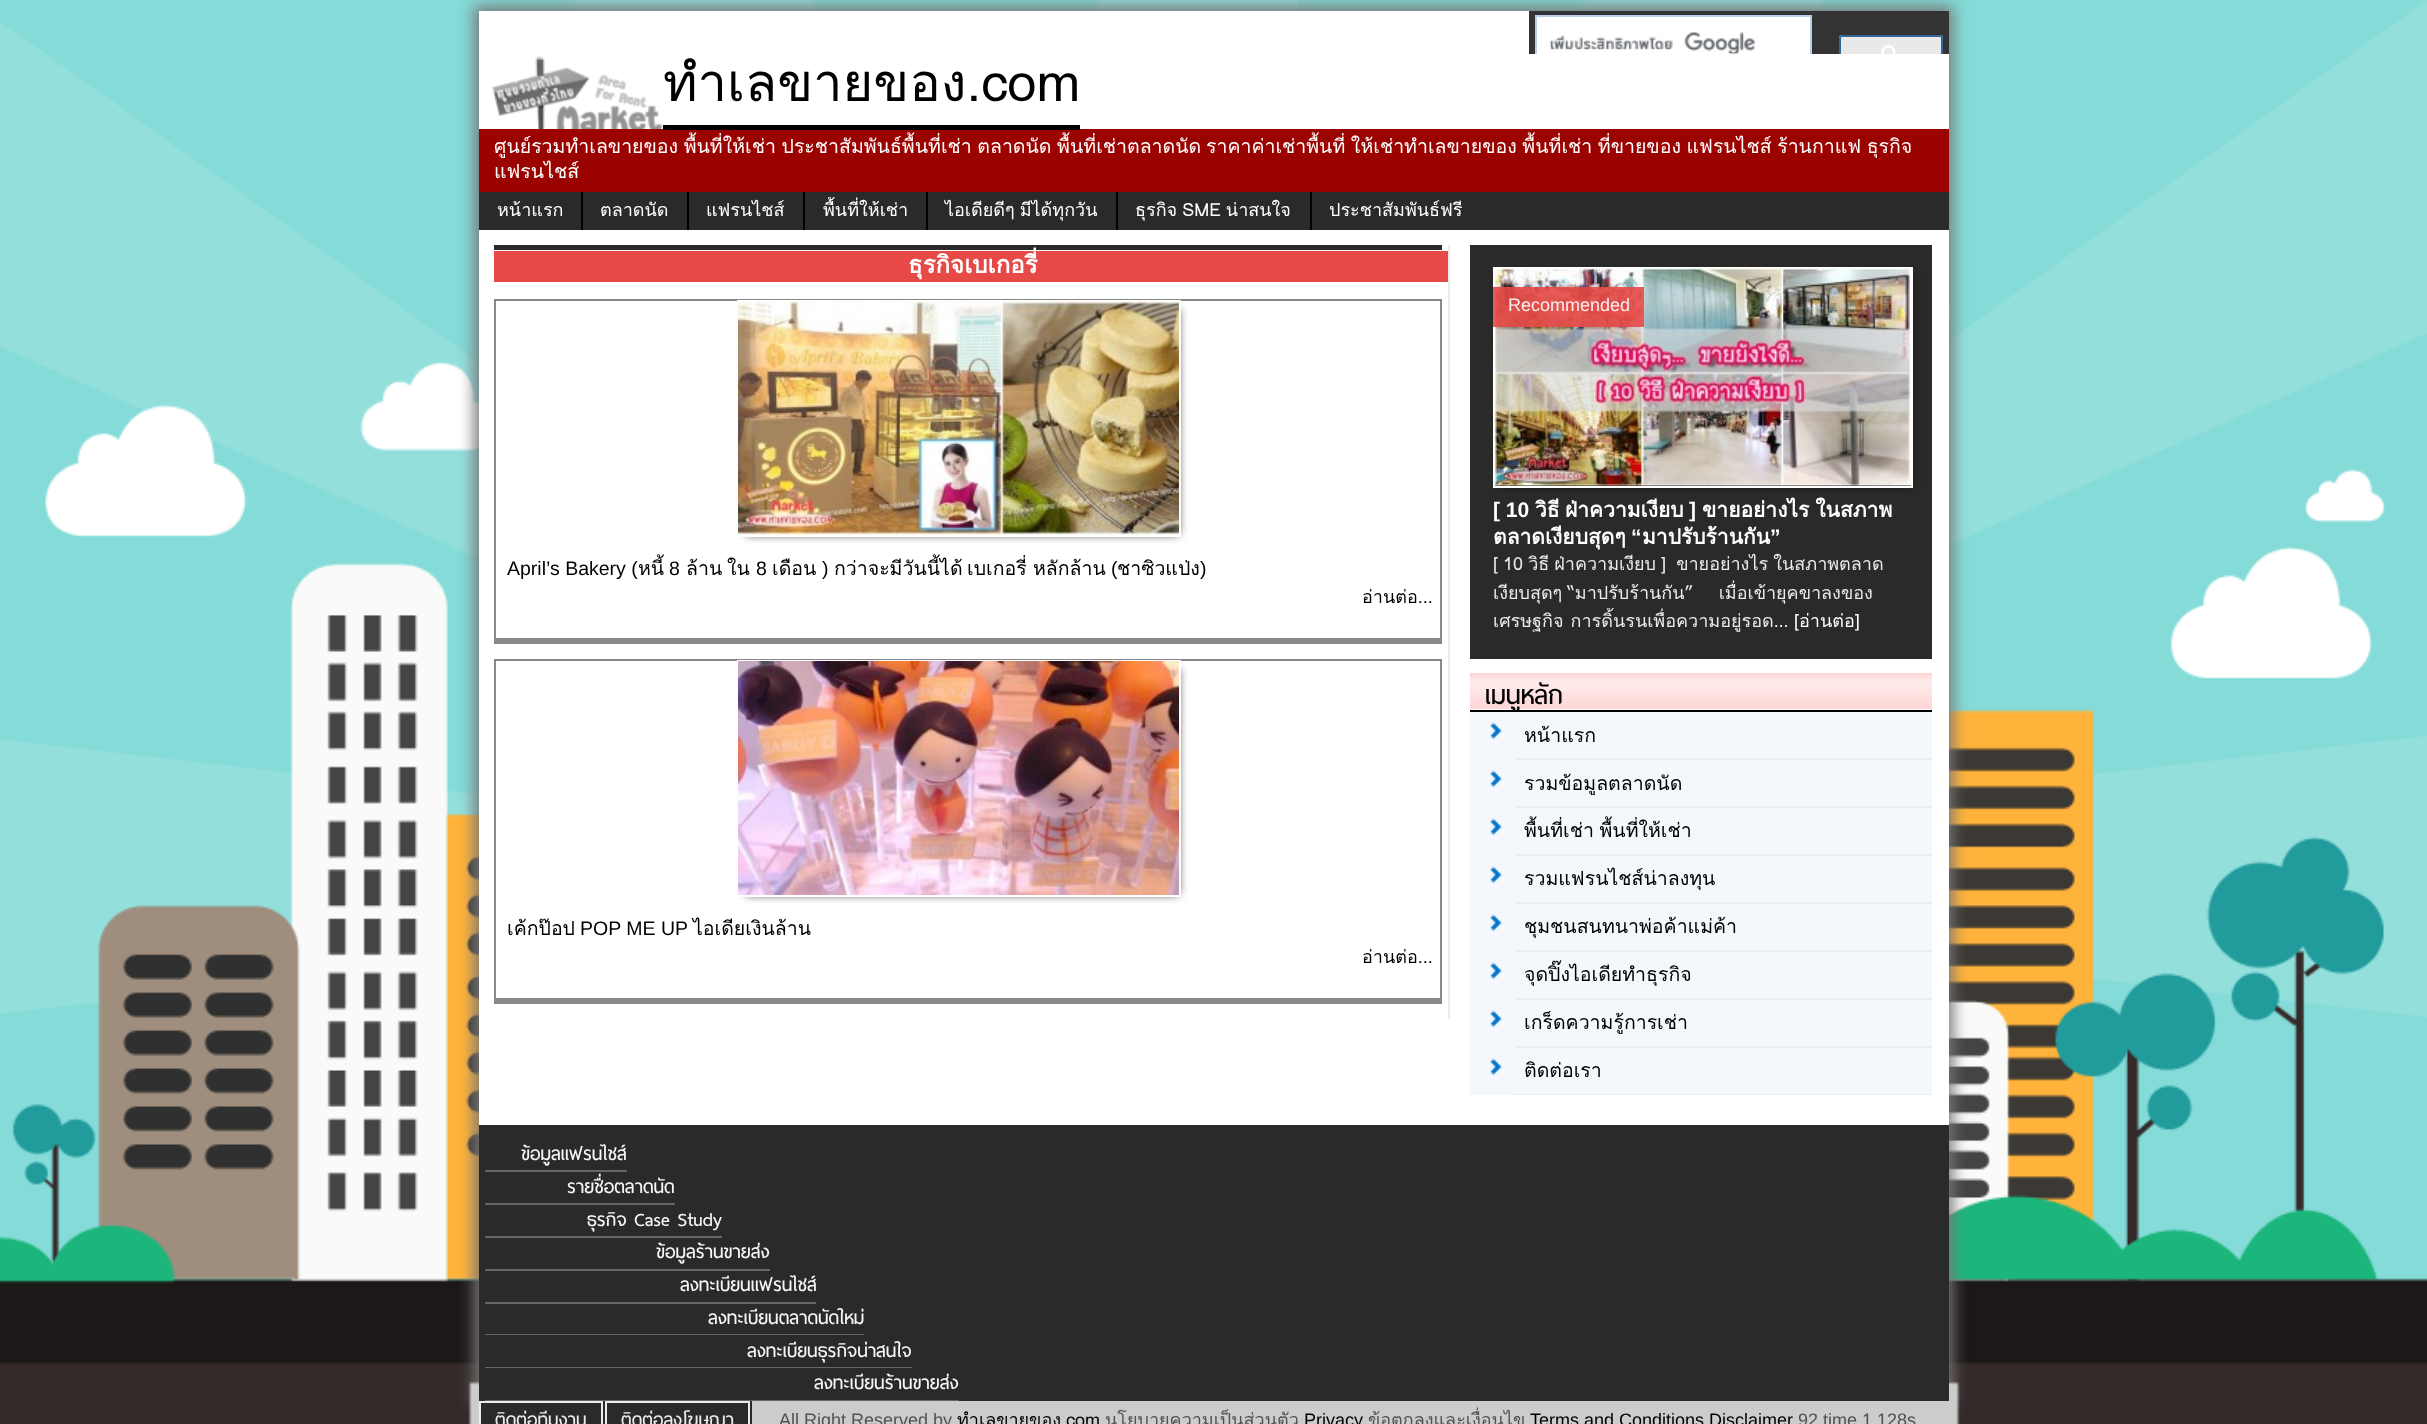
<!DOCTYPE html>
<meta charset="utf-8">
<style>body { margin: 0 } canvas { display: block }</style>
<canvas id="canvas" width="2427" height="1424"></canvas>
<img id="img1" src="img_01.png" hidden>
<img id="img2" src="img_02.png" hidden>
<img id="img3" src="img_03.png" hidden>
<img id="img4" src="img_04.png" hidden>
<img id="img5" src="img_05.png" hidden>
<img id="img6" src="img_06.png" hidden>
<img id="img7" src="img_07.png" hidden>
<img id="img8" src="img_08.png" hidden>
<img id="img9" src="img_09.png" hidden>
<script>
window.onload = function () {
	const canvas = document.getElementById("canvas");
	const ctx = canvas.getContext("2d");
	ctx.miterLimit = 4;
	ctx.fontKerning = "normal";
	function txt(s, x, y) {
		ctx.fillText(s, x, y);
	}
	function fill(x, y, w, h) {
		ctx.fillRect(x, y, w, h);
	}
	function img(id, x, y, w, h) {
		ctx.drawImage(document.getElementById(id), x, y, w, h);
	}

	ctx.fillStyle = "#FFFFFF";
	fill(0, 0, 2427, 1424);
	img("img1", 0, 0, 2427, 1424);
	ctx.fillStyle = "#777777";
	ctx.filter = "blur(7.5px)";
	ctx.beginPath();
	ctx.rect(474, 6, 1479, 1400);
	ctx.fill();
	ctx.filter = "none";
	ctx.fillStyle = "#FFFFFF";
	fill(479, 11, 1470, 118);
	ctx.fillStyle = "#333333";
	fill(1529, 11, 420, 43);
	ctx.fillStyle = "#FFFFFF";
	fill(1537, 17, 273, 37);
	ctx.save();
	ctx.beginPath();
	ctx.rect(1529, 15, 420, 39);
	ctx.clip();
	ctx.strokeStyle = "#BCCDF0";
	ctx.lineWidth = 2;
	ctx.strokeRect(1536, 16, 275, 78);
	ctx.restore();
	img("img2", 1549, 32, 206, 22);
	ctx.fillStyle = "#E9E9E9";
	ctx.beginPath();
	ctx.roundRect(1839, 35, 104, 19, [3, 3, 0, 0]);
	ctx.fill();
	ctx.save();
	ctx.beginPath();
	ctx.rect(1529, 15, 420, 39);
	ctx.clip();
	ctx.beginPath();
	ctx.roundRect(1840, 36, 102, 38, 2);
	ctx.strokeStyle = "#336699";
	ctx.lineWidth = 2;
	ctx.stroke();
	ctx.restore();
	img("img3", 1881, 45, 15, 9);
	img("img4", 492, 56, 171, 73);
	ctx.fillStyle = "#9B0300";
	fill(479, 129, 1470, 63);
	ctx.fillStyle = "#000000";
	fill(663, 125, 417, 5);
	ctx.fillStyle = "#2A2A2A";
	fill(479, 192, 1470, 38);
	ctx.fillStyle = "#000000";
	fill(581, 192, 2, 38);
	fill(687, 192, 2, 38);
	fill(803, 192, 2, 38);
	fill(926, 192, 2, 38);
	fill(1116, 192, 2, 38);
	fill(1310, 192, 2, 38);
	ctx.fillStyle = "#FFFFFF";
	fill(479, 230, 1470, 895);
	ctx.fillStyle = "#EBEBEB";
	fill(1448, 245, 2, 774);
	ctx.fillStyle = "#2A2A2A";
	fill(494, 245, 948, 5);
	ctx.fillStyle = "#E64946";
	fill(494, 251, 954, 31);
	ctx.fillStyle = "#888888";
	fill(494, 299, 948, 2);
	fill(1440, 299, 2, 345);
	fill(494, 638, 948, 6);
	fill(494, 299, 2, 345);
	ctx.fillStyle = "#000000";
	ctx.filter = "blur(5px)";
	ctx.beginPath();
	ctx.rect(746, 309, 432, 225);
	ctx.fill();
	ctx.filter = "none";
	ctx.strokeStyle = "#FFFFFF";
	ctx.lineWidth = 2;
	ctx.strokeRect(738, 301, 442, 235);
	img("img5", 738, 301, 441, 234);
	ctx.fillStyle = "#888888";
	fill(494, 659, 948, 2);
	fill(1440, 659, 2, 345);
	fill(494, 998, 948, 6);
	fill(494, 659, 2, 345);
	ctx.fillStyle = "#000000";
	ctx.filter = "blur(5px)";
	ctx.beginPath();
	ctx.rect(746, 669, 432, 225);
	ctx.fill();
	ctx.filter = "none";
	ctx.strokeRect(738, 661, 442, 235);
	img("img6", 738, 661, 441, 234);
	ctx.fillStyle = "#2A2A2A";
	fill(1470, 245, 462, 414);
	ctx.fillStyle = "#000000";
	ctx.filter = "blur(5px)";
	ctx.beginPath();
	ctx.rect(1502, 276, 408, 209);
	ctx.fill();
	ctx.filter = "none";
	ctx.strokeRect(1494, 268, 418, 219);
	img("img7", 1494, 268, 417, 218);
	ctx.fillStyle = "rgba(230, 73, 70, 0.9)";
	fill(1493, 287, 151, 40);
	ctx.fillStyle = "#F4F7FC";
	fill(1470, 709, 462, 386);
	img("img8", 1470, 673, 462, 36);
	ctx.fillStyle = "#000000";
	fill(1470, 710, 462, 2);
	ctx.fillStyle = "#EBEBEB";
	fill(1515, 758, 417, 2);
	img("img9", 1489, 722, 13, 18);
	fill(1515, 806, 417, 2);
	img("img9", 1489, 770, 13, 18);
	fill(1515, 854, 417, 2);
	img("img9", 1489, 818, 13, 18);
	fill(1515, 902, 417, 2);
	img("img9", 1489, 866, 13, 18);
	fill(1515, 950, 417, 2);
	img("img9", 1489, 914, 13, 18);
	fill(1515, 998, 417, 2);
	img("img9", 1489, 962, 13, 18);
	fill(1515, 1046, 417, 2);
	img("img9", 1489, 1010, 13, 18);
	fill(1515, 1094, 417, 1);
	img("img9", 1489, 1058, 13, 18);
	ctx.fillStyle = "#CCCCCC";
	ctx.filter = "blur(1px)";
	ctx.beginPath();
	ctx.rect(470, 1383, 1488, 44);
	ctx.fill();
	ctx.filter = "none";
	ctx.fillStyle = "#2A2A2A";
	fill(479, 1125, 1470, 276);
	ctx.fillStyle = "#666666";
	fill(485, 1170, 142, 2);
	fill(485, 1203, 190, 2);
	fill(485, 1236, 237, 2);
	fill(485, 1269, 285, 2);
	fill(485, 1302, 331, 2);
	fill(485, 1334, 379, 1);
	fill(485, 1367, 427, 1);
	fill(485, 1400, 474, 1);
	ctx.fillStyle = "#2A2A2A";
	fill(481, 1401, 271, 23);
	ctx.strokeStyle = "#EBEBEB";
	ctx.strokeRect(480, 1402, 122, 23);
	ctx.strokeRect(606, 1402, 143, 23);
	ctx.font = "52.5px Loma";
	ctx.fillStyle = "#000000";
	txt("ทำเลขายของ.com", 663, 101);
	ctx.wordSpacing = "-1px";
	ctx.font = "19.5px Loma";
	ctx.fillStyle = "#FFFFFF";
	txt("ศูนย์รวมทำเลขายของ พื้นที่ให้เช่า ประชาสัมพันธ์พื้นที่เช่า ตลาดนัด พื้นที่เช่าตลาดนัด", 494, 153);
	txt("ราคาค่าเช่าพื้นที่ ให้เช่าทำเลขายของ พื้นที่เช่า ที่ขายของ แฟรนไชส์ ร้านกาแฟ ธุรกิจ", 1206, 153);
	ctx.wordSpacing = "0px";
	txt("แฟรนไชส์", 494, 178);
	ctx.font = "18px Loma";
	txt("หน้าแรก", 497, 216);
	txt("ตลาดนัด", 600, 216);
	txt("แฟรนไชส์", 706, 216);
	txt("พื้นที่ให้เช่า", 823, 216);
	ctx.wordSpacing = "-1px";
	txt("ไอเดียดีๆ มีได้ทุกวัน", 945, 216);
	txt("ธุรกิจ SME น่าสนใจ", 1135, 216);
	ctx.wordSpacing = "0px";
	txt("ประชาสัมพันธ์ฟรี", 1329, 216);
	ctx.font = "bold 24px Loma";
	txt("ธุรกิจเบเกอรี่", 908, 273);
	ctx.font = "19.5px Liberation Sans";
	ctx.fillStyle = "#000000";
	txt("April’s Bakery (", 507, 575);
	ctx.font = "19.5px Loma";
	txt("หนี้", 638, 575);
	ctx.font = "19.5px Liberation Sans";
	txt("8", 669, 575);
	ctx.font = "19.5px Loma";
	txt("ล้าน", 686, 575);
	txt("ใน", 727, 575);
	ctx.font = "19.5px Liberation Sans";
	txt("8", 756, 575);
	ctx.font = "19.5px Loma";
	txt("เดือน", 772, 575);
	ctx.font = "19.5px Liberation Sans";
	txt(")", 822, 575);
	ctx.font = "19.5px Loma";
	txt("กว่าจะมีวันนี้ได้", 834, 575);
	txt("เบเกอรี่", 967, 575);
	txt("หลักล้าน", 1033, 575);
	ctx.font = "19.5px Liberation Sans";
	txt("(", 1111, 575);
	ctx.font = "19.5px Loma";
	txt("ชาซิวแป่ง", 1117, 575);
	ctx.font = "19.5px Liberation Sans";
	txt(")", 1200, 575);
	ctx.font = "18px Loma";
	txt("อ่านต่อ...", 1362, 603);
	ctx.font = "19.5px Loma";
	txt("เค้กป๊อป", 507, 935);
	ctx.font = "19.5px Liberation Sans";
	txt("POP ME UP", 580, 935);
	ctx.font = "19.5px Loma";
	txt("ไอเดียเงินล้าน", 693, 935);
	ctx.font = "18px Loma";
	txt("อ่านต่อ...", 1362, 963);
	ctx.font = "18px Liberation Sans";
	ctx.fillStyle = "#FCEDED";
	txt("Recommended", 1508, 311);
	ctx.font = "bold 21px Liberation Sans";
	ctx.fillStyle = "#FFFFFF";
	txt("[ 10", 1493, 517);
	ctx.font = "bold 21px Loma";
	txt("วิธี", 1535, 517);
	txt("ฝ่าความเงียบ", 1565, 517);
	ctx.font = "bold 21px Liberation Sans";
	txt("]", 1689, 517);
	ctx.wordSpacing = "-1px";
	ctx.font = "bold 21px Loma";
	txt("ขายอย่างไร ในสภาพ", 1702, 517);
	ctx.wordSpacing = "0px";
	txt("ตลาดเงียบสุดๆ", 1493, 544);
	ctx.font = "bold 21px Liberation Sans";
	txt("“", 1631, 544);
	ctx.font = "bold 21px Loma";
	txt("มาปรับร้านกัน", 1642, 544);
	ctx.font = "bold 21px Liberation Sans";
	txt("”", 1770, 544);
	ctx.wordSpacing = "-1px";
	ctx.font = "18px Loma";
	ctx.fillStyle = "#EBEBEB";
	txt("[ 10 วิธี ฝ่าความเงียบ ]  ขายอย่างไร ในสภาพตลาด", 1493, 570);
	txt("เงียบสุดๆ “มาปรับร้านกัน”     เมื่อเข้ายุคขาลงของ", 1493, 599);
	ctx.wordSpacing = "1px";
	txt("เศรษฐกิจ การดิ้นรนเพื่อความอยู่รอด…", 1493, 627);
	ctx.wordSpacing = "0px";
	ctx.fillStyle = "#FFFFFF";
	txt("[อ่านต่อ]", 1794, 627);
	ctx.font = "600 34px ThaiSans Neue";
	ctx.fillStyle = "#000000";
	txt("เมนูหลัก", 1485, 704);
	ctx.font = "19.5px Loma";
	txt("หน้าแรก", 1524, 742);
	txt("รวมข้อมูลตลาดนัด", 1524, 790);
	ctx.wordSpacing = "-1px";
	txt("พื้นที่เช่า พื้นที่ให้เช่า", 1524, 837);
	ctx.wordSpacing = "0px";
	txt("รวมแฟรนไชส์น่าลงทุน", 1524, 885);
	txt("ชุมชนสนทนาพ่อค้าแม่ค้า", 1524, 933);
	txt("จุดปิ๊งไอเดียทำธุรกิจ", 1524, 981);
	txt("เกร็ดความรู้การเช่า", 1524, 1029);
	txt("ติดต่อเรา", 1524, 1077);
	ctx.font = "600 24px ThaiSans Neue";
	ctx.fillStyle = "#F7F7F7";
	txt("ข้อมูลแฟรนไชส์", 521, 1160);
	txt("รายชื่อตลาดนัด", 567, 1193);
	txt("ธุรกิจ Case Study", 587, 1226);
	txt("ข้อมูลร้านขายส่ง", 656, 1258);
	txt("ลงทะเบียนแฟรนไชส์", 680, 1291);
	txt("ลงทะเบียนตลาดนัดใหม่", 708, 1324);
	txt("ลงทะเบียนธุรกิจน่าสนใจ", 747, 1357);
	txt("ลงทะเบียนร้านขายส่ง", 814, 1389);
	ctx.fillStyle = "#EBEBEB";
	txt("ติดต่อทีมงาน", 495, 1426);
	txt("ติดต่อลงโฆษณา", 621, 1426);
	ctx.font = "18px Liberation Sans";
	ctx.fillStyle = "#525252";
	txt("All Right Reserved by", 779, 1426);
	ctx.font = "18px Loma";
	ctx.fillStyle = "#000000";
	txt("ทำเลขายของ.com", 957, 1426);
	ctx.fillStyle = "#525252";
	txt("นโยบายความเป็นส่วนตัว", 1105, 1426);
	ctx.font = "18px Liberation Sans";
	ctx.fillStyle = "#000000";
	txt("Privacy", 1304, 1426);
	ctx.font = "18px Loma";
	ctx.fillStyle = "#525252";
	txt("ข้อตกลงและเงื่อนไข", 1368, 1426);
	ctx.font = "18px Liberation Sans";
	ctx.fillStyle = "#000000";
	txt("Terms and Conditions Disclaimer", 1530, 1426);
	ctx.fillStyle = "#525252";
	txt("92 time 1.128s", 1798, 1426);
};
</script>
